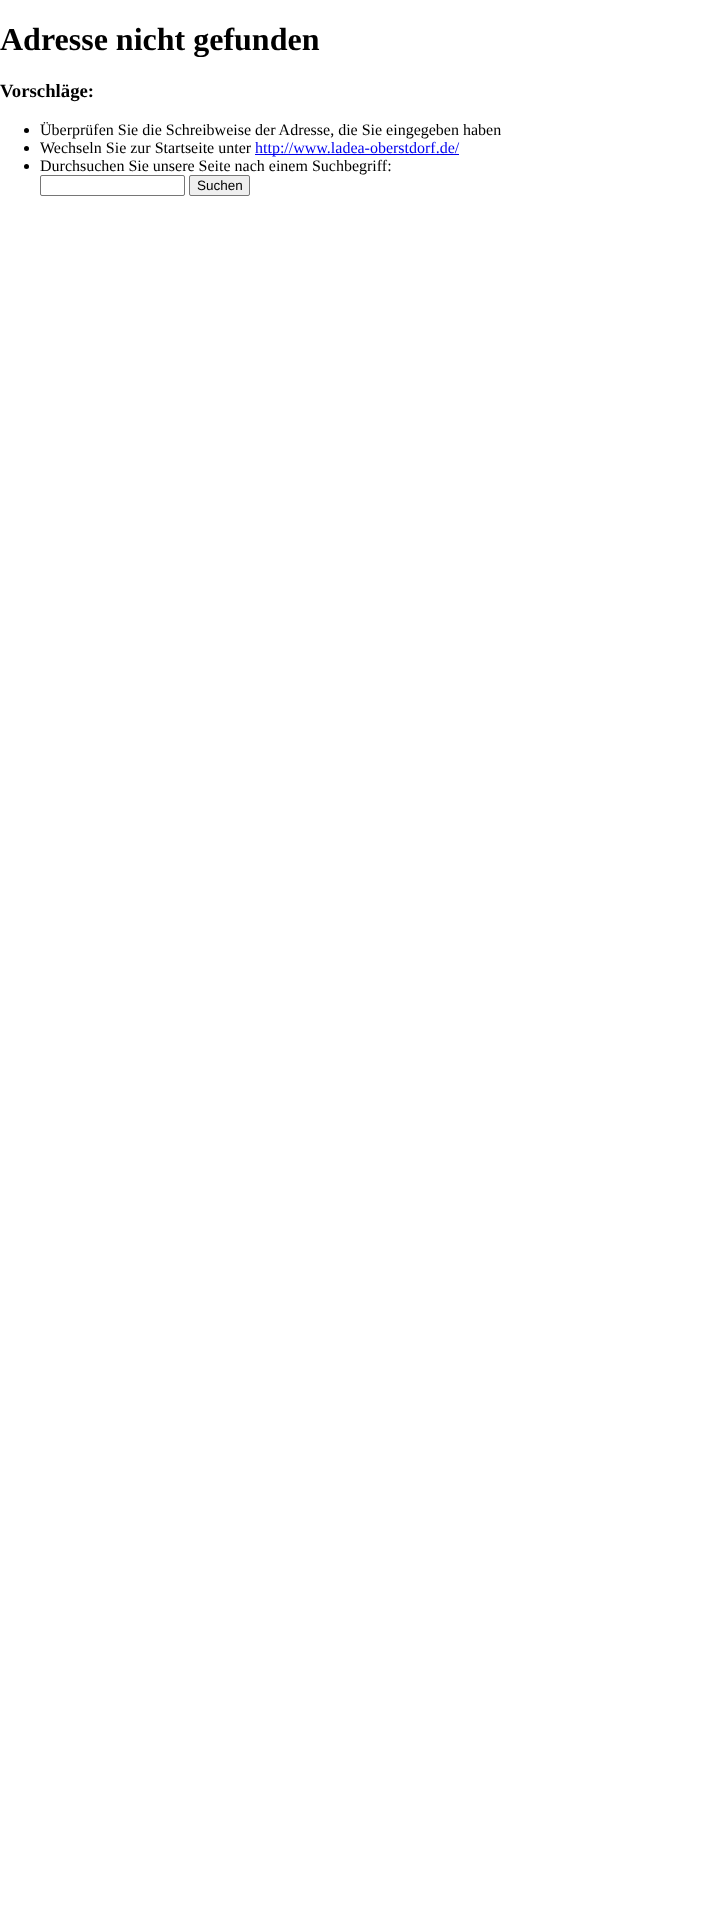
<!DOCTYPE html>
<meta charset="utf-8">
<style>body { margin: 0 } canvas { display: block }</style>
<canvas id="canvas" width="714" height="1931"></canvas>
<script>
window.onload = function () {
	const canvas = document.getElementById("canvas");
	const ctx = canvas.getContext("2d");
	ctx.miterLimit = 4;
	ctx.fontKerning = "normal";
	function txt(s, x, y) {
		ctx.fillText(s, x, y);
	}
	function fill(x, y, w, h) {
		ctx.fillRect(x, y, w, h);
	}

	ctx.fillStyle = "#FFFFFF";
	fill(0, 0, 714, 1931);
	ctx.fillStyle = "#000000";
	ctx.beginPath();
	ctx.arc(26.5, 130.5, 2.5, 0, Math.PI * 2);
	ctx.fill();
	ctx.beginPath();
	ctx.arc(26.5, 148.5, 2.5, 0, Math.PI * 2);
	ctx.fill();
	ctx.fillStyle = "#0000EE";
	fill(255, 154, 204, 1);
	ctx.fillStyle = "#000000";
	ctx.beginPath();
	ctx.arc(26.5, 166.5, 2.5, 0, Math.PI * 2);
	ctx.fill();
	ctx.beginPath();
	ctx.roundRect(40.5, 175.5, 144, 20, 1.5);
	ctx.strokeStyle = "#767676";
	ctx.stroke();
	ctx.fillStyle = "#EFEFEF";
	ctx.beginPath();
	ctx.roundRect(189.5, 175.5, 60, 20, 1.5);
	ctx.fill();
	ctx.stroke();
	ctx.font = "bold 32px Liberation Serif";
	ctx.fillStyle = "#000000";
	txt("Adresse nicht gefunden", 0, 50);
	ctx.font = "bold 18.75px Liberation Serif";
	txt("Vorschläge:", 0, 97);
	ctx.font = "16px Liberation Serif";
	txt("Überprüfen Sie die Schreibweise der Adresse, die Sie eingegeben haben", 40, 135);
	txt("Wechseln Sie zur Startseite unter", 40, 153);
	ctx.fillStyle = "#0000EE";
	txt("http://www.ladea-oberstdorf.de/", 255, 153);
	ctx.fillStyle = "#000000";
	txt("Durchsuchen Sie unsere Seite nach einem Suchbegriff:", 40, 171);
	ctx.font = "13.5px Liberation Sans";
	txt("Suchen", 197, 190);
};
</script>
